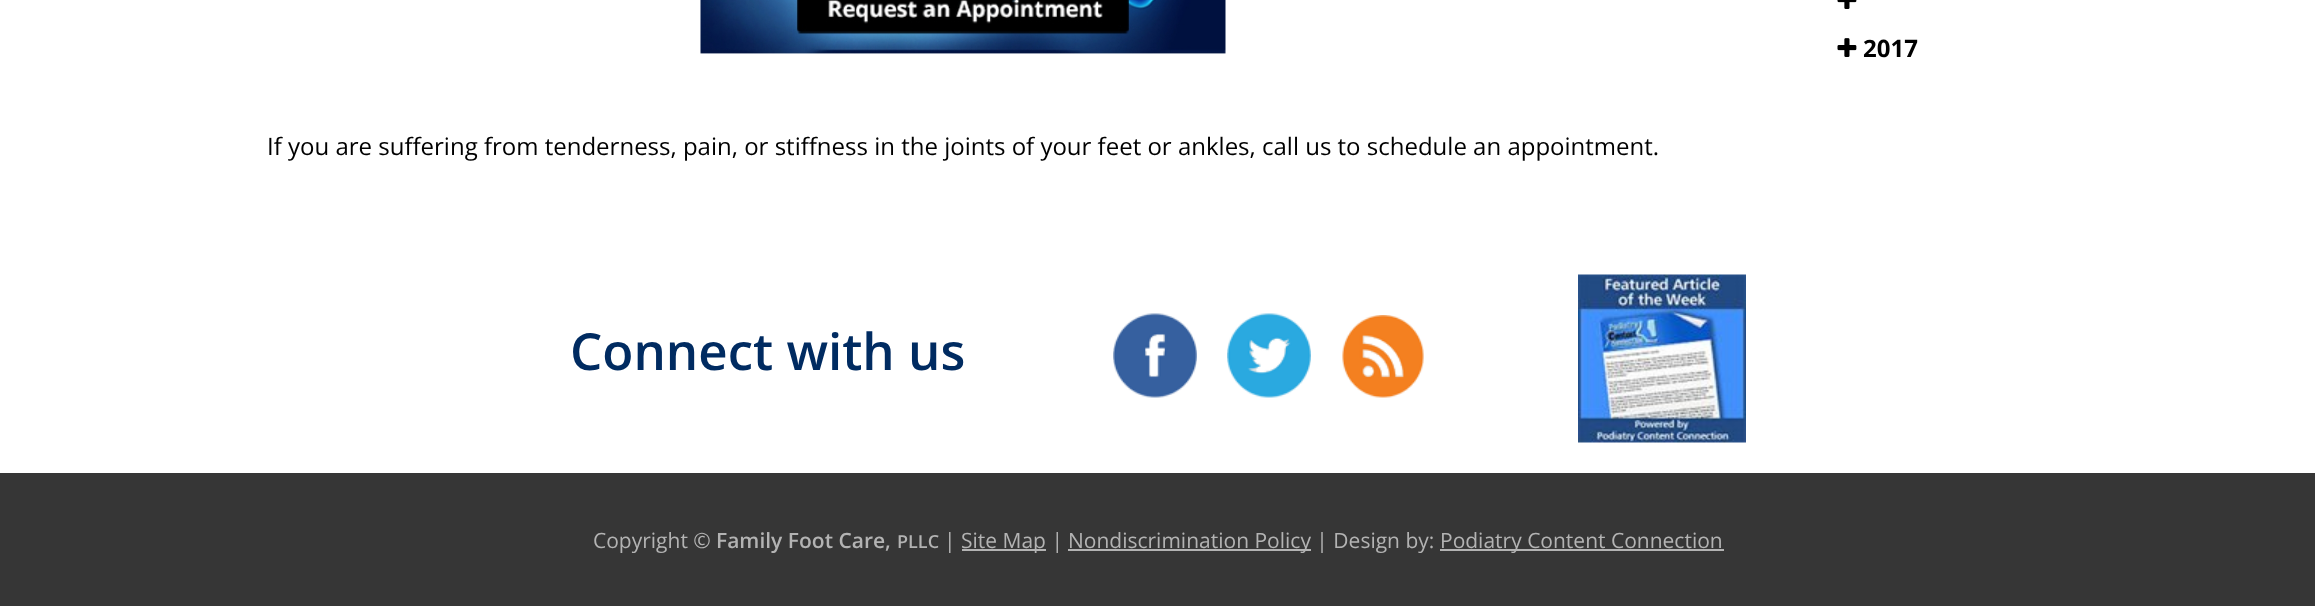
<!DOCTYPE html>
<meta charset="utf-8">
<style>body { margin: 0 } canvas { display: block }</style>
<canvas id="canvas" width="2315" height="606"></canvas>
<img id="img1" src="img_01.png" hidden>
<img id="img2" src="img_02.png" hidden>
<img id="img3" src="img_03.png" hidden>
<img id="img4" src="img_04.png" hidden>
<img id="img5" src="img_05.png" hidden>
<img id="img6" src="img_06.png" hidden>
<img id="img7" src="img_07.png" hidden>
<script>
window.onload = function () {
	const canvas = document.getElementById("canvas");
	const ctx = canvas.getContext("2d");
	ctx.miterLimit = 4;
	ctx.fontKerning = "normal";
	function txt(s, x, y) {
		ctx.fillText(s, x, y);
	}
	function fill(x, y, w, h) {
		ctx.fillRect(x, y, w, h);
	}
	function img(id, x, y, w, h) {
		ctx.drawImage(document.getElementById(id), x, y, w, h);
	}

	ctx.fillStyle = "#FFFFFF";
	fill(0, 0, 2315, 606);
	img("img1", 1837, 0, 20, 9);
	img("img2", 1837, 38, 20, 19);
	img("img3", 700, 0, 526, 54);
	img("img4", 1113, 313, 84, 85);
	img("img5", 1227, 313, 84, 85);
	img("img6", 1342, 315, 82, 83);
	img("img7", 1578, 274, 168, 169);
	ctx.fillStyle = "#363636";
	fill(0, 473, 2315, 133);
	ctx.fillStyle = "#B3B3B3";
	fill(962, 549, 84, 2);
	fill(1068, 549, 243, 2);
	fill(1440, 549, 284, 2);
	ctx.font = "bold 24px Open Sans";
	ctx.fillStyle = "#000000";
	txt("2017", 1863, 57);
	ctx.font = "24px Open Sans";
	txt("If you are suffering from tenderness, pain, or stiffness in the joints of your feet or ankles, call us to schedule an appointment.", 267, 155);
	ctx.font = "600 51px Open Sans";
	ctx.fillStyle = "#002B61";
	txt("Connect with us", 570, 370);
	ctx.font = "21px Open Sans";
	ctx.fillStyle = "#B3B3B3";
	txt("Copyright ©", 593, 548);
	ctx.font = "600 21px Open Sans";
	txt("Family Foot Care,", 716, 548);
	ctx.font = "600 18px Open Sans";
	txt("PLLC", 897, 548);
	ctx.font = "21px Open Sans";
	txt("|", 944, 548);
	txt("Site Map |", 961, 548);
	txt("Nondiscrimination Policy | Design by:", 1068, 548);
	txt("Podiatry Content Connection", 1440, 548);
};
</script>
